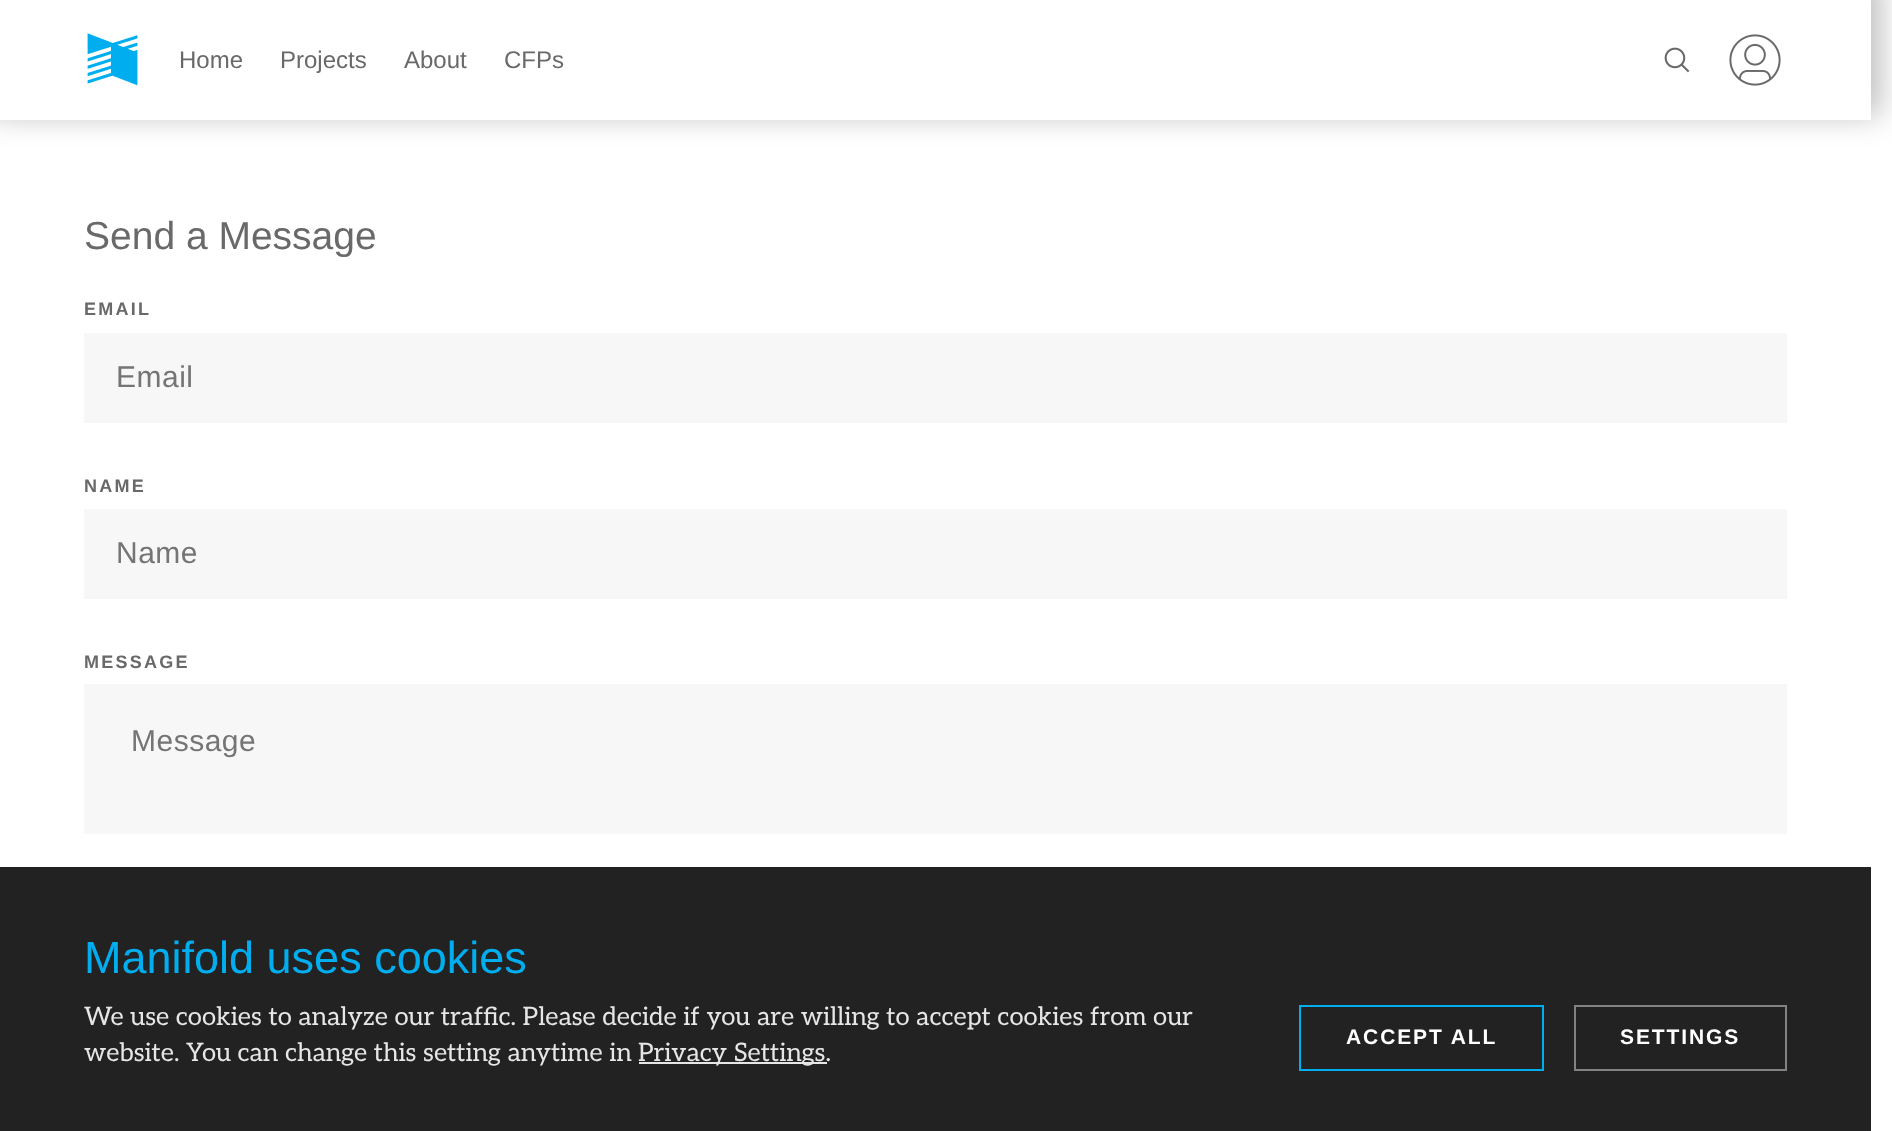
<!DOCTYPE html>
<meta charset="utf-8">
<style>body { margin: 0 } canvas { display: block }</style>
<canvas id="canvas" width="1892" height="1131"></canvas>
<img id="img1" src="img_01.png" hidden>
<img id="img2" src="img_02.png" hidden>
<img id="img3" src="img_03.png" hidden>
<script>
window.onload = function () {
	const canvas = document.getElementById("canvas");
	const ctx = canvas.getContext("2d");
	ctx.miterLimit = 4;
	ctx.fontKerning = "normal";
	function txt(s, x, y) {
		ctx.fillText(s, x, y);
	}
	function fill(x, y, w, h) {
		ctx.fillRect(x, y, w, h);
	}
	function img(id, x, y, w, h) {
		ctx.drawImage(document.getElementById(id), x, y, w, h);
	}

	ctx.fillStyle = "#FFFFFF";
	fill(0, 0, 1892, 1131);
	ctx.fillStyle = "rgba(0, 0, 0, 0.25)";
	ctx.filter = "blur(15px)";
	ctx.beginPath();
	ctx.rect(-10, -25, 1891, 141);
	ctx.fill();
	ctx.filter = "none";
	ctx.fillStyle = "#FFFFFF";
	fill(0, 0, 1871, 120);
	img("img1", 87, 33, 51, 53);
	img("img2", 1664, 47, 26, 26);
	img("img3", 1729, 34, 52, 52);
	ctx.fillStyle = "#F7F7F7";
	fill(84, 333, 1703, 90);
	fill(84, 509, 1703, 90);
	fill(84, 684, 1703, 150);
	ctx.fillStyle = "#222222";
	fill(0, 867, 1871, 264);
	ctx.fillStyle = "#E6E6E6";
	fill(639, 1062, 188, 2);
	ctx.strokeStyle = "#00AEF0";
	ctx.lineWidth = 2;
	ctx.strokeRect(1300, 1006, 243, 64);
	ctx.strokeStyle = "#828282";
	ctx.strokeRect(1575, 1006, 211, 64);
	ctx.font = "24px Liberation Sans";
	ctx.fillStyle = "#696969";
	txt("Home", 179, 68);
	txt("Projects", 280, 68);
	txt("About", 404, 68);
	txt("CFPs", 504, 68);
	ctx.font = "39px Liberation Sans";
	txt("Send a Message", 84, 249);
	ctx.letterSpacing = "2.25px";
	ctx.font = "bold 18px Liberation Sans";
	txt("EMAIL", 84, 315);
	ctx.letterSpacing = "0.5px";
	ctx.font = "30px Liberation Sans";
	ctx.fillStyle = "#757575";
	txt("Email", 116, 387);
	ctx.letterSpacing = "2.25px";
	ctx.font = "bold 18px Liberation Sans";
	ctx.fillStyle = "#696969";
	txt("NAME", 84, 492);
	ctx.letterSpacing = "0.5px";
	ctx.font = "30px Liberation Sans";
	ctx.fillStyle = "#757575";
	txt("Name", 116, 563);
	ctx.letterSpacing = "2.25px";
	ctx.font = "bold 18px Liberation Sans";
	ctx.fillStyle = "#696969";
	txt("MESSAGE", 84, 668);
	ctx.letterSpacing = "0.5px";
	ctx.font = "30px Liberation Sans";
	ctx.fillStyle = "#757575";
	txt("Message", 131, 751);
	ctx.letterSpacing = "0px";
	ctx.font = "45px Liberation Sans";
	ctx.fillStyle = "#00AEF0";
	txt("Manifold uses cookies", 84, 973);
	ctx.font = "25.5px Aleo";
	ctx.fillStyle = "#E6E6E6";
	txt("We use cookies to analyze our traffic. Please decide if you are willing to accept cookies from our", 84, 1025);
	txt("website. You can change this setting anytime in", 84, 1061);
	txt("Privacy Settings.", 638, 1061);
	ctx.letterSpacing = "1.9px";
	ctx.font = "bold 21px Liberation Sans";
	ctx.fillStyle = "#FFFFFF";
	txt("ACCEPT ALL", 1346, 1044);
	txt("SETTINGS", 1620, 1044);
};
</script>
